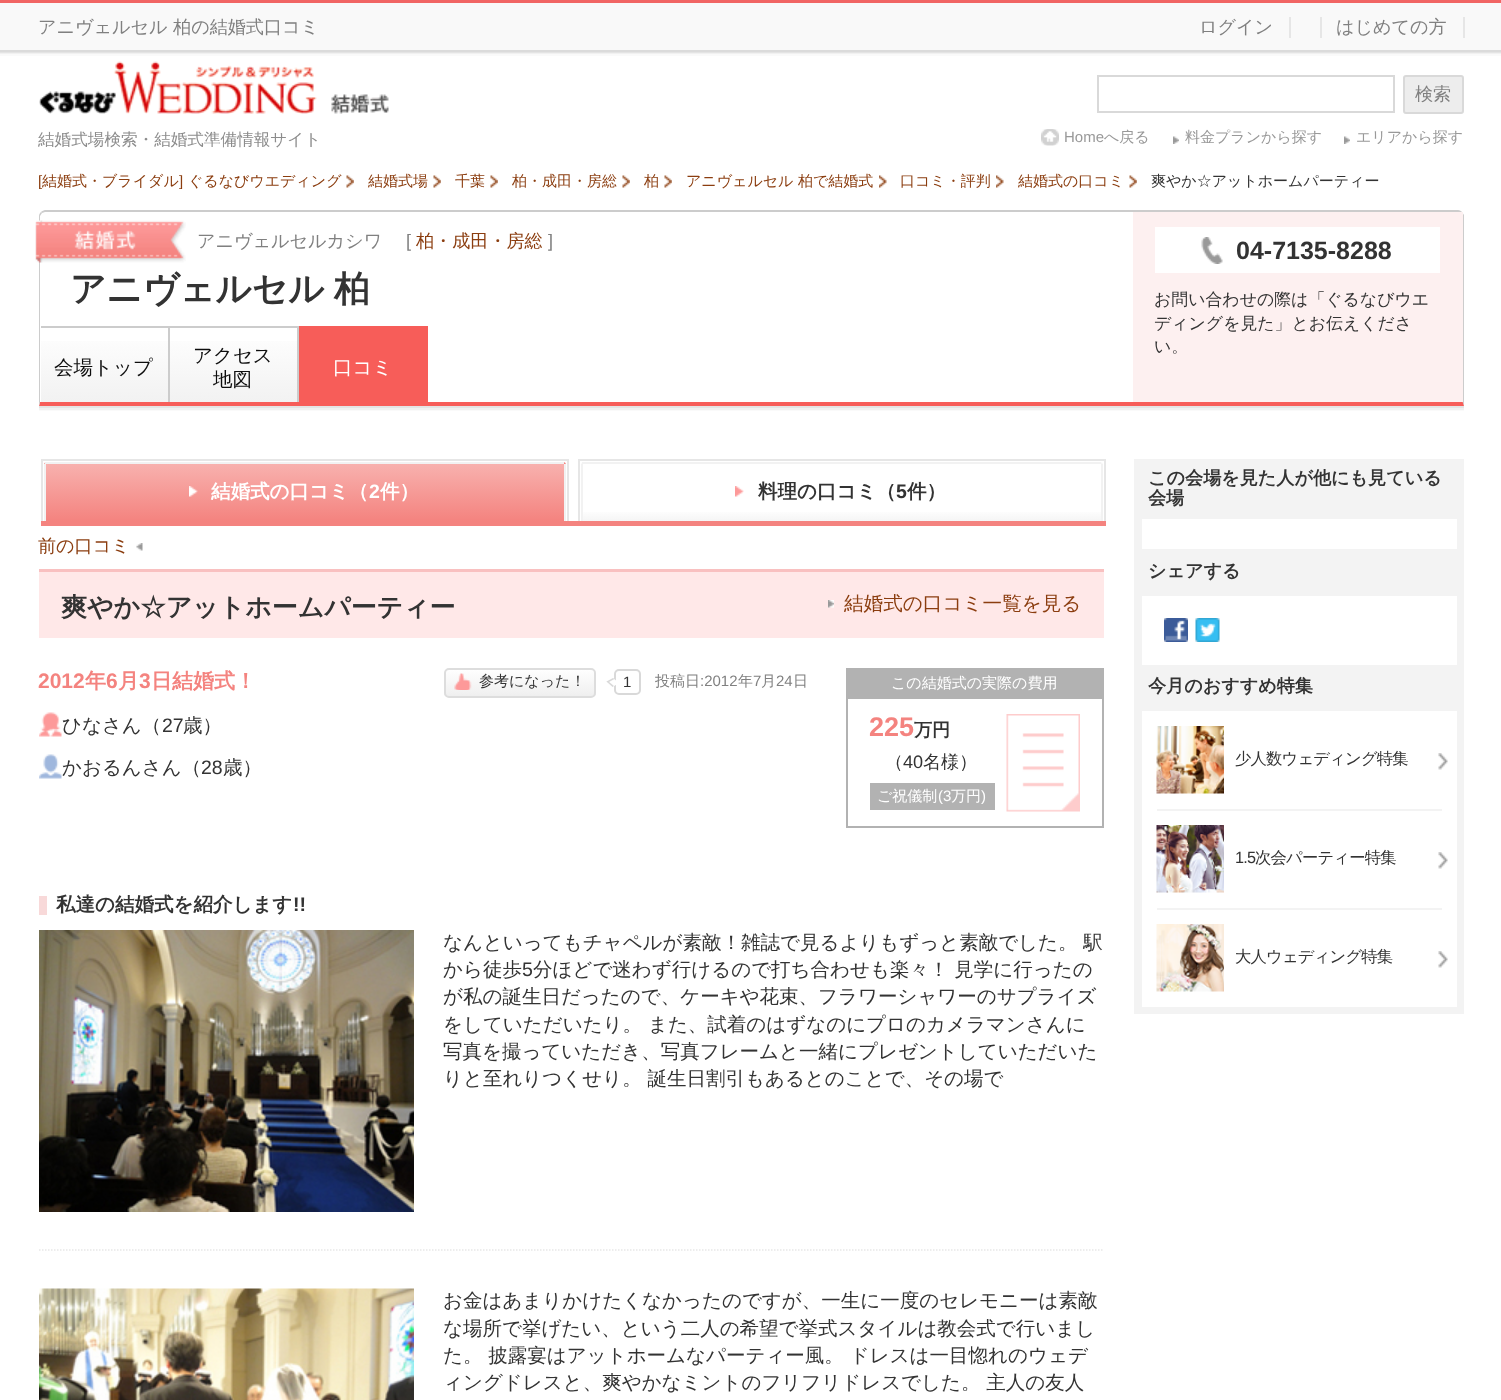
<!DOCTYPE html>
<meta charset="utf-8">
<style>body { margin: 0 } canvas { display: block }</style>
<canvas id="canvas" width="1501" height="1400"></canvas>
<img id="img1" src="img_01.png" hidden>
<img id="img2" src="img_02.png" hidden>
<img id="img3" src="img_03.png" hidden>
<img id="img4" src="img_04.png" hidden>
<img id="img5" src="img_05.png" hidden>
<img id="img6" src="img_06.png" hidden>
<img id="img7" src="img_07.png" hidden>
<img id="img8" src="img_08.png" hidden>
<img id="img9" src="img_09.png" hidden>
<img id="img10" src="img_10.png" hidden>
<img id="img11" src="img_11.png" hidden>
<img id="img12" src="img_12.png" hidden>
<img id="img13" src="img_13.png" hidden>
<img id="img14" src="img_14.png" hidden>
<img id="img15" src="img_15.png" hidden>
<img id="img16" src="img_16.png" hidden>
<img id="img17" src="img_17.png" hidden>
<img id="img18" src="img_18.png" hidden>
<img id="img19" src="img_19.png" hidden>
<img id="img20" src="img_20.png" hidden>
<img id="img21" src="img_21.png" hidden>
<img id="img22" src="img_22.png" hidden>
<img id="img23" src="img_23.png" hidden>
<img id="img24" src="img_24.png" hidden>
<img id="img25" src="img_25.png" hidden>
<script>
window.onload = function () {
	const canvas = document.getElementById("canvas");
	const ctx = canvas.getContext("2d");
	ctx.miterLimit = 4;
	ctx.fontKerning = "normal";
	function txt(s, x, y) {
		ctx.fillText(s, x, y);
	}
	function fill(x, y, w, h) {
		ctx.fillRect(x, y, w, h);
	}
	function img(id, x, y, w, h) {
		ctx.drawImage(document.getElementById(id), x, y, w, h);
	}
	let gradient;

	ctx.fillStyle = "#FFFFFF";
	fill(0, 0, 1501, 1400);
	ctx.fillStyle = "#FAFAFA";
	ctx.beginPath();
	ctx.moveTo(0, 51);
	ctx.lineTo(0, 56);
	ctx.lineTo(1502, 56);
	ctx.lineTo(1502, 5);
	ctx.lineTo(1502, 51);
	ctx.closePath();
	ctx.fill();
	ctx.fillStyle = "#F1F1F1";
	ctx.beginPath();
	ctx.moveTo(0, 51);
	ctx.lineTo(0, 54);
	ctx.lineTo(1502, 54);
	ctx.lineTo(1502, 3);
	ctx.lineTo(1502, 51);
	ctx.closePath();
	ctx.fill();
	ctx.fillStyle = "#E4E4E4";
	ctx.beginPath();
	ctx.moveTo(0, 51);
	ctx.lineTo(0, 53);
	ctx.lineTo(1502, 53);
	ctx.lineTo(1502, 2);
	ctx.lineTo(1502, 51);
	ctx.closePath();
	ctx.fill();
	ctx.fillStyle = "#F9F9F9";
	fill(0, 3, 1501, 47);
	ctx.fillStyle = "#F16564";
	fill(0, 0, 1501, 3);
	ctx.fillStyle = "#DBDBDB";
	fill(0, 50, 1501, 2);
	ctx.fillStyle = "#E6E6E6";
	fill(1289, 17, 2, 21);
	fill(1320, 17, 2, 21);
	fill(1463, 17, 2, 21);
	img("img1", 39, 61, 278, 53);
	img("img2", 331, 94, 58, 20);
	ctx.strokeStyle = "#D9D9D9";
	ctx.lineWidth = 2;
	ctx.strokeRect(1098, 76, 296, 36);
	ctx.fillStyle = "#EDEDED";
	ctx.beginPath();
	ctx.roundRect(1404, 76, 59, 37, 2);
	ctx.fill();
	ctx.stroke();
	img("img3", 1041, 129, 18, 17);
	img("img4", 1173, 136, 6, 8);
	img("img4", 1344, 136, 6, 8);
	img("img5", 346, 175, 8, 13);
	img("img6", 433, 175, 8, 13);
	img("img5", 490, 175, 8, 13);
	img("img6", 622, 175, 8, 13);
	img("img6", 664, 175, 8, 13);
	img("img7", 879, 175, 8, 13);
	img("img7", 996, 175, 8, 13);
	img("img6", 1129, 175, 8, 13);
	ctx.fillStyle = "#FAFAFA";
	fill(39, 410, 1425, 1);
	ctx.fillStyle = "#F1F1F1";
	fill(39, 408, 1425, 2);
	ctx.fillStyle = "#E4E4E4";
	fill(39, 406, 1425, 2);
	ctx.fillStyle = "#CCCCCC";
	ctx.beginPath();
	ctx.moveTo(45, 210);
	ctx.bezierCurveTo(44, 210, 42, 211, 41, 212);
	ctx.lineTo(42, 213);
	ctx.lineTo(45, 212);
	ctx.lineTo(1458, 212);
	ctx.lineTo(1461, 213);
	ctx.lineTo(1462, 212);
	ctx.bezierCurveTo(1461, 211, 1460, 210, 1458, 210);
	ctx.closePath();
	ctx.fill();
	ctx.beginPath();
	ctx.moveTo(1464, 406);
	ctx.lineTo(1464, 215);
	ctx.lineTo(1462, 212);
	ctx.lineTo(1461, 213);
	ctx.bezierCurveTo(1462, 214, 1462, 215, 1462, 216);
	ctx.lineTo(1462, 400);
	ctx.closePath();
	ctx.fill();
	ctx.fillStyle = "#F75D59";
	ctx.beginPath();
	ctx.moveTo(1464, 406);
	ctx.lineTo(39, 406);
	ctx.lineTo(40, 402);
	ctx.lineTo(1462, 402);
	ctx.lineTo(1462, 400);
	ctx.closePath();
	ctx.fill();
	ctx.fillStyle = "#CCCCCC";
	ctx.beginPath();
	ctx.moveTo(39, 216);
	ctx.lineTo(39, 406);
	ctx.lineTo(40, 402);
	ctx.lineTo(40, 216);
	ctx.lineTo(42, 213);
	ctx.lineTo(41, 212);
	ctx.bezierCurveTo(40, 213, 39, 214, 39, 216);
	ctx.closePath();
	ctx.fill();
	img("img8", 35, 220, 151, 43);
	ctx.fillStyle = "#FDF0F0";
	fill(1133, 212, 330, 190);
	ctx.fillStyle = "#FFFFFF";
	fill(1155, 227, 285, 46);
	img("img9", 1201, 237, 22, 27);
	gradient = ctx.createLinearGradient(105, 326, 105, 402);
	gradient.addColorStop(0, "#FFFFFF");
	gradient.addColorStop(1, "#F2F2F2");
	ctx.fillStyle = gradient;
	fill(41, 341, 127, 61);
	ctx.fillStyle = "#CCCCCC";
	fill(41, 326, 258, 2);
	fill(168, 326, 2, 76);
	gradient = ctx.createLinearGradient(234, 326, 234, 402);
	gradient.addColorStop(0, "#FFFFFF");
	gradient.addColorStop(1, "#F2F2F2");
	ctx.fillStyle = gradient;
	fill(170, 341, 127, 61);
	ctx.fillStyle = "#CCCCCC";
	fill(297, 326, 2, 76);
	ctx.fillStyle = "#F75D59";
	fill(299, 326, 129, 76);
	ctx.fillStyle = "#F4837F";
	fill(41, 521, 1065, 5);
	ctx.fillStyle = "#E6E6E6";
	fill(41, 459, 528, 2);
	fill(567, 459, 2, 62);
	fill(41, 459, 2, 62);
	ctx.save();
	ctx.beginPath();
	ctx.roundRect(44, 462, 522, 59, [3, 3, 0, 0]);
	ctx.clip();
	gradient = ctx.createLinearGradient(305, 407, 305, 464);
	gradient.addColorStop(0, "#F8B1AE");
	gradient.addColorStop(1, "#F4837F");
	ctx.fillStyle = gradient;
	fill(44, 462, 522, 2);
	ctx.restore();
	gradient = ctx.createLinearGradient(305, 464, 305, 521);
	gradient.addColorStop(0, "#F8B1AE");
	gradient.addColorStop(1, "#F4837F");
	ctx.fillStyle = gradient;
	fill(46, 464, 518, 57);
	ctx.fillStyle = "#F2F2F2";
	fill(45, 462, 519, 2);
	fill(564, 464, 2, 57);
	fill(44, 464, 2, 57);
	img("img10", 189, 486, 9, 11);
	ctx.fillStyle = "#E6E6E6";
	fill(578, 459, 528, 2);
	fill(1104, 459, 2, 62);
	fill(578, 459, 2, 62);
	ctx.save();
	ctx.beginPath();
	ctx.roundRect(581, 462, 522, 59, [3, 3, 0, 0]);
	ctx.clip();
	gradient = ctx.createLinearGradient(842, 407, 842, 464);
	gradient.addColorStop(0.8, "#FFFFFF");
	gradient.addColorStop(1, "#F5F5F5");
	ctx.fillStyle = gradient;
	fill(581, 462, 522, 2);
	ctx.restore();
	gradient = ctx.createLinearGradient(842, 464, 842, 521);
	gradient.addColorStop(0.8, "#FFFFFF");
	gradient.addColorStop(1, "#F5F5F5");
	ctx.fillStyle = gradient;
	fill(583, 512, 518, 9);
	ctx.fillStyle = "#F2F2F2";
	fill(582, 462, 519, 2);
	fill(1101, 464, 2, 57);
	fill(581, 464, 2, 57);
	img("img11", 735, 486, 9, 11);
	img("img12", 136, 543, 7, 8);
	ctx.fillStyle = "#FFE8E8";
	fill(39, 572, 1065, 66);
	ctx.fillStyle = "#F9C0C0";
	fill(39, 569, 1065, 3);
	img("img13", 828, 600, 6, 8);
	ctx.save();
	ctx.beginPath();
	ctx.roundRect(444, 668, 152, 30, 5);
	ctx.clip();
	gradient = ctx.createLinearGradient(520, 669, 520, 696);
	gradient.addColorStop(0, "#FFFFFF");
	gradient.addColorStop(1, "#EFEFEF");
	ctx.fillStyle = gradient;
	fill(444, 669, 152, 27);
	ctx.restore();
	ctx.beginPath();
	ctx.roundRect(445, 669, 150, 28, 4);
	ctx.strokeStyle = "#DDDDDD";
	ctx.stroke();
	img("img14", 454, 673, 18, 17);
	ctx.beginPath();
	ctx.roundRect(615, 670, 25, 24, 4);
	ctx.strokeStyle = "#D9D9D9";
	ctx.stroke();
	ctx.fillStyle = "#FFFFFF";
	ctx.beginPath();
	ctx.moveTo(606.5, 681.5);
	ctx.lineTo(613, 678);
	ctx.lineTo(619, 683);
	ctx.lineTo(612.5, 687);
	ctx.closePath();
	ctx.fill();
	ctx.fillStyle = "#D9D9D9";
	ctx.beginPath();
	ctx.moveTo(606.5, 681.5);
	ctx.lineTo(613, 678);
	ctx.lineTo(614.5, 679);
	ctx.lineTo(608, 682.5);
	ctx.closePath();
	ctx.fill();
	ctx.beginPath();
	ctx.moveTo(606.5, 681.5);
	ctx.lineTo(608, 681);
	ctx.lineTo(614, 686);
	ctx.lineTo(612.5, 687);
	ctx.closePath();
	ctx.fill();
	img("img15", 39, 712, 23, 25);
	img("img16", 39, 754, 23, 25);
	ctx.strokeStyle = "#B2B2B2";
	ctx.strokeRect(847, 669, 256, 158);
	ctx.fillStyle = "#B2B2B2";
	fill(848, 670, 254, 29);
	fill(870, 783, 125, 27);
	img("img17", 1006, 714, 74, 98);
	ctx.fillStyle = "#F8D9D9";
	fill(39, 896, 8, 19);
	ctx.beginPath();
	ctx.moveTo(39, 1250);
	ctx.lineTo(1104, 1250);
	ctx.strokeStyle = "#E7E7E7";
	ctx.lineWidth = 1.5;
	ctx.setLineDash([1.5, 1.5]);
	ctx.stroke();
	img("img18", 39, 930, 375, 282);
	img("img19", 39, 1288, 375, 112);
	ctx.fillStyle = "#F3F3F3";
	fill(1457, 459, 7, 555);
	fill(1134, 1007, 330, 7);
	fill(1134, 459, 8, 555);
	fill(1142, 459, 315, 60);
	fill(1142, 549, 315, 47);
	img("img20", 1164, 618, 24, 24);
	img("img21", 1195, 618, 25, 24);
	fill(1142, 665, 315, 46);
	img("img22", 1156, 726, 68, 68);
	img("img23", 1438, 753, 10, 17);
	fill(1157, 809, 285, 2);
	img("img24", 1156, 825, 68, 68);
	img("img23", 1438, 852, 10, 17);
	fill(1157, 908, 285, 2);
	img("img25", 1156, 924, 68, 68);
	img("img23", 1438, 951, 10, 17);
	ctx.font = "500 18.1px WenQuanYi Zen Hei";
	ctx.fillStyle = "#808080";
	txt("アニヴェルセル 柏の結婚式口コミ", 38, 33);
	txt("ログイン", 1199, 33);
	txt("はじめての方", 1336, 33);
	ctx.font = "500 16.6px WenQuanYi Zen Hei";
	ctx.fillStyle = "#8C8C8C";
	txt("結婚式場検索・結婚式準備情報サイト", 38, 145);
	ctx.font = "500 18.1px WenQuanYi Zen Hei";
	ctx.fillStyle = "#808080";
	txt("検索", 1415, 100);
	ctx.font = "15px Liberation Sans";
	ctx.fillStyle = "#999999";
	txt("Home", 1064, 142);
	ctx.font = "500 15px WenQuanYi Zen Hei";
	txt("へ戻る", 1104, 142);
	txt("料金プランから探す", 1185, 142);
	txt("エリアから探す", 1356, 142);
	ctx.font = "15px Liberation Sans";
	ctx.fillStyle = "#8B3D0F";
	txt("[", 38, 186);
	ctx.font = "500 15px WenQuanYi Zen Hei";
	txt("結婚式・ブライダル", 42, 186);
	ctx.font = "15px Liberation Sans";
	txt("]", 179, 186);
	ctx.font = "500 15px WenQuanYi Zen Hei";
	txt("ぐるなびウエディング", 188, 186);
	txt("結婚式場", 368, 186);
	txt("千葉", 455, 186);
	txt("柏・成田・房総", 512, 186);
	txt("柏", 644, 186);
	txt("アニヴェルセル 柏で結婚式", 686, 186);
	txt("口コミ・評判", 900, 186);
	txt("結婚式の口コミ", 1018, 186);
	ctx.fillStyle = "#333333";
	txt("爽やか☆アットホームパーティー", 1151, 186);
	ctx.font = "500 18.1px WenQuanYi Zen Hei";
	ctx.fillStyle = "#808080";
	txt("アニヴェルセルカシワ", 197, 247);
	ctx.font = "18.1px Liberation Sans";
	txt("[", 406, 247);
	ctx.font = "500 18.1px WenQuanYi Zen Hei";
	ctx.fillStyle = "#8B3D0F";
	txt("柏・成田・房総", 416, 247);
	ctx.font = "18.1px Liberation Sans";
	ctx.fillStyle = "#808080";
	txt("]", 548, 247);
	ctx.wordSpacing = "-1px";
	ctx.font = "bold 35.5px WenQuanYi Zen Hei";
	ctx.fillStyle = "#333333";
	txt("アニヴェルセル 柏", 70, 301);
	ctx.wordSpacing = "0px";
	ctx.font = "bold 25px Liberation Sans";
	txt("04-7135-8288", 1236, 259);
	ctx.font = "500 16.9px WenQuanYi Zen Hei";
	txt("お問い合わせの際は「ぐるなびウエ", 1154, 305);
	txt("ディングを見た」とお伝えくださ", 1154, 329);
	txt("い。", 1154, 352);
	ctx.font = "500 19.5px WenQuanYi Zen Hei";
	ctx.fillStyle = "#0D0D0D";
	txt("会場トップ", 54, 374);
	txt("アクセス", 193, 362);
	txt("地図", 213, 386);
	ctx.fillStyle = "#FFFFFF";
	txt("口コミ", 333, 374);
	ctx.font = "bold 19.5px WenQuanYi Zen Hei";
	txt("結婚式の口コミ（", 211, 498);
	ctx.font = "bold 19.5px Liberation Sans";
	txt("2", 369, 498);
	ctx.font = "bold 19.5px WenQuanYi Zen Hei";
	txt("件）", 380, 498);
	ctx.fillStyle = "#333333";
	txt("料理の口コミ（", 758, 498);
	ctx.font = "bold 19.5px Liberation Sans";
	txt("5", 896, 498);
	ctx.font = "bold 19.5px WenQuanYi Zen Hei";
	txt("件）", 907, 498);
	ctx.font = "500 18.1px WenQuanYi Zen Hei";
	ctx.fillStyle = "#8B3D0F";
	txt("前の口コミ", 38, 552);
	ctx.font = "bold 25.9px WenQuanYi Zen Hei";
	ctx.fillStyle = "#333333";
	txt("爽やか☆アットホームパーティー", 61, 616);
	ctx.font = "500 19.6px WenQuanYi Zen Hei";
	ctx.fillStyle = "#8B3D0F";
	txt("結婚式の口コミ一覧を見る", 844, 610);
	ctx.font = "bold 21px Liberation Sans";
	ctx.fillStyle = "#F4837F";
	txt("2012", 38, 688);
	ctx.font = "bold 21px WenQuanYi Zen Hei";
	txt("年", 85, 688);
	ctx.font = "bold 21px Liberation Sans";
	txt("6", 106, 688);
	ctx.font = "bold 21px WenQuanYi Zen Hei";
	txt("月", 118, 688);
	ctx.font = "bold 21px Liberation Sans";
	txt("3", 139, 688);
	ctx.font = "bold 21px WenQuanYi Zen Hei";
	txt("日結婚式！", 151, 688);
	ctx.font = "500 15px WenQuanYi Zen Hei";
	ctx.fillStyle = "#333333";
	txt("参考になった！", 479, 686);
	ctx.font = "15px Liberation Sans";
	txt("1", 623, 687);
	ctx.font = "500 15px WenQuanYi Zen Hei";
	ctx.fillStyle = "#808080";
	txt("投稿日", 655, 686);
	ctx.font = "15px Liberation Sans";
	txt(":2012", 700, 686);
	ctx.font = "500 15px WenQuanYi Zen Hei";
	txt("年", 738, 686);
	ctx.font = "15px Liberation Sans";
	txt("7", 753, 686);
	ctx.font = "500 15px WenQuanYi Zen Hei";
	txt("月", 761, 686);
	ctx.font = "15px Liberation Sans";
	txt("24", 776, 686);
	ctx.font = "500 15px WenQuanYi Zen Hei";
	txt("日", 793, 686);
	ctx.font = "500 19.5px WenQuanYi Zen Hei";
	ctx.fillStyle = "#333333";
	txt("ひなさん（", 62, 732);
	ctx.font = "19.5px Liberation Sans";
	txt("27", 162, 732);
	ctx.font = "500 19.5px WenQuanYi Zen Hei";
	txt("歳）", 183, 732);
	txt("かおるんさん（", 62, 774);
	ctx.font = "19.5px Liberation Sans";
	txt("28", 201, 774);
	ctx.font = "500 19.5px WenQuanYi Zen Hei";
	txt("歳）", 223, 774);
	ctx.font = "500 15px WenQuanYi Zen Hei";
	ctx.fillStyle = "#FFFFFF";
	txt("この結婚式の実際の費用", 891, 688);
	ctx.font = "bold 27px Liberation Sans";
	ctx.fillStyle = "#F4837F";
	txt("225", 869, 736);
	ctx.font = "bold 18.1px WenQuanYi Zen Hei";
	ctx.fillStyle = "#333333";
	txt("万円", 914, 736);
	ctx.font = "500 18.1px WenQuanYi Zen Hei";
	txt("（", 885, 768);
	ctx.font = "18.1px Liberation Sans";
	txt("40", 903, 768);
	ctx.font = "500 18.1px WenQuanYi Zen Hei";
	txt("名様）", 923, 768);
	ctx.font = "500 15px WenQuanYi Zen Hei";
	ctx.fillStyle = "#FFFFFF";
	txt("ご祝儀制", 877, 801);
	ctx.font = "15px Liberation Sans";
	txt("(3", 938, 801);
	ctx.font = "500 15px WenQuanYi Zen Hei";
	txt("万円", 951, 801);
	ctx.font = "15px Liberation Sans";
	txt(")", 981, 801);
	ctx.font = "bold 19.5px WenQuanYi Zen Hei";
	ctx.fillStyle = "#333333";
	txt("私達の結婚式を紹介します", 56, 911);
	ctx.font = "bold 19.5px Liberation Sans";
	txt("!!", 293, 911);
	ctx.font = "500 19.5px WenQuanYi Zen Hei";
	txt("なんといってもチャペルが素敵！雑誌で見るよりもずっと素敵でした。 駅", 443, 949);
	txt("から徒歩", 443, 976);
	ctx.font = "19.5px Liberation Sans";
	txt("5", 522, 976);
	ctx.font = "500 19.5px WenQuanYi Zen Hei";
	txt("分ほどで迷わず行けるので打ち合わせも楽々！ 見学に行ったの", 533, 976);
	txt("が私の誕生日だったので、ケーキや花束、フラワーシャワーのサプライズ", 443, 1003);
	txt("をしていただいたり。 また、試着のはずなのにプロのカメラマンさんに", 443, 1031);
	txt("写真を撮っていただき、写真フレームと一緒にプレゼントしていただいた", 443, 1058);
	txt("りと至れりつくせり。 誕生日割引もあるとのことで、その場で", 443, 1085);
	txt("お金はあまりかけたくなかったのですが、一生に一度のセレモニーは素敵", 443, 1307);
	txt("な場所で挙げたい、という二人の希望で挙式スタイルは教会式で行いまし", 443, 1335);
	txt("た。 披露宴はアットホームなパーティー風。 ドレスは一目惚れのウェデ", 443, 1362);
	txt("ィングドレスと、爽やかなミントのフリフリドレスでした。 主人の友人", 443, 1389);
	ctx.font = "bold 18.1px WenQuanYi Zen Hei";
	txt("この会場を見た人が他にも見ている", 1148, 484);
	txt("会場", 1148, 504);
	txt("シェアする", 1148, 577);
	txt("今月のおすすめ特集", 1148, 692);
	ctx.letterSpacing = "-0.75px";
	ctx.font = "500 16.25px WenQuanYi Zen Hei";
	txt("少人数ウェディング特集", 1235, 764);
	ctx.font = "16.25px Liberation Sans";
	txt("1.5", 1235, 863);
	ctx.font = "500 16.25px WenQuanYi Zen Hei";
	txt("次会パーティー特集", 1255, 863);
	txt("大人ウェディング特集", 1235, 962);
};
</script>
